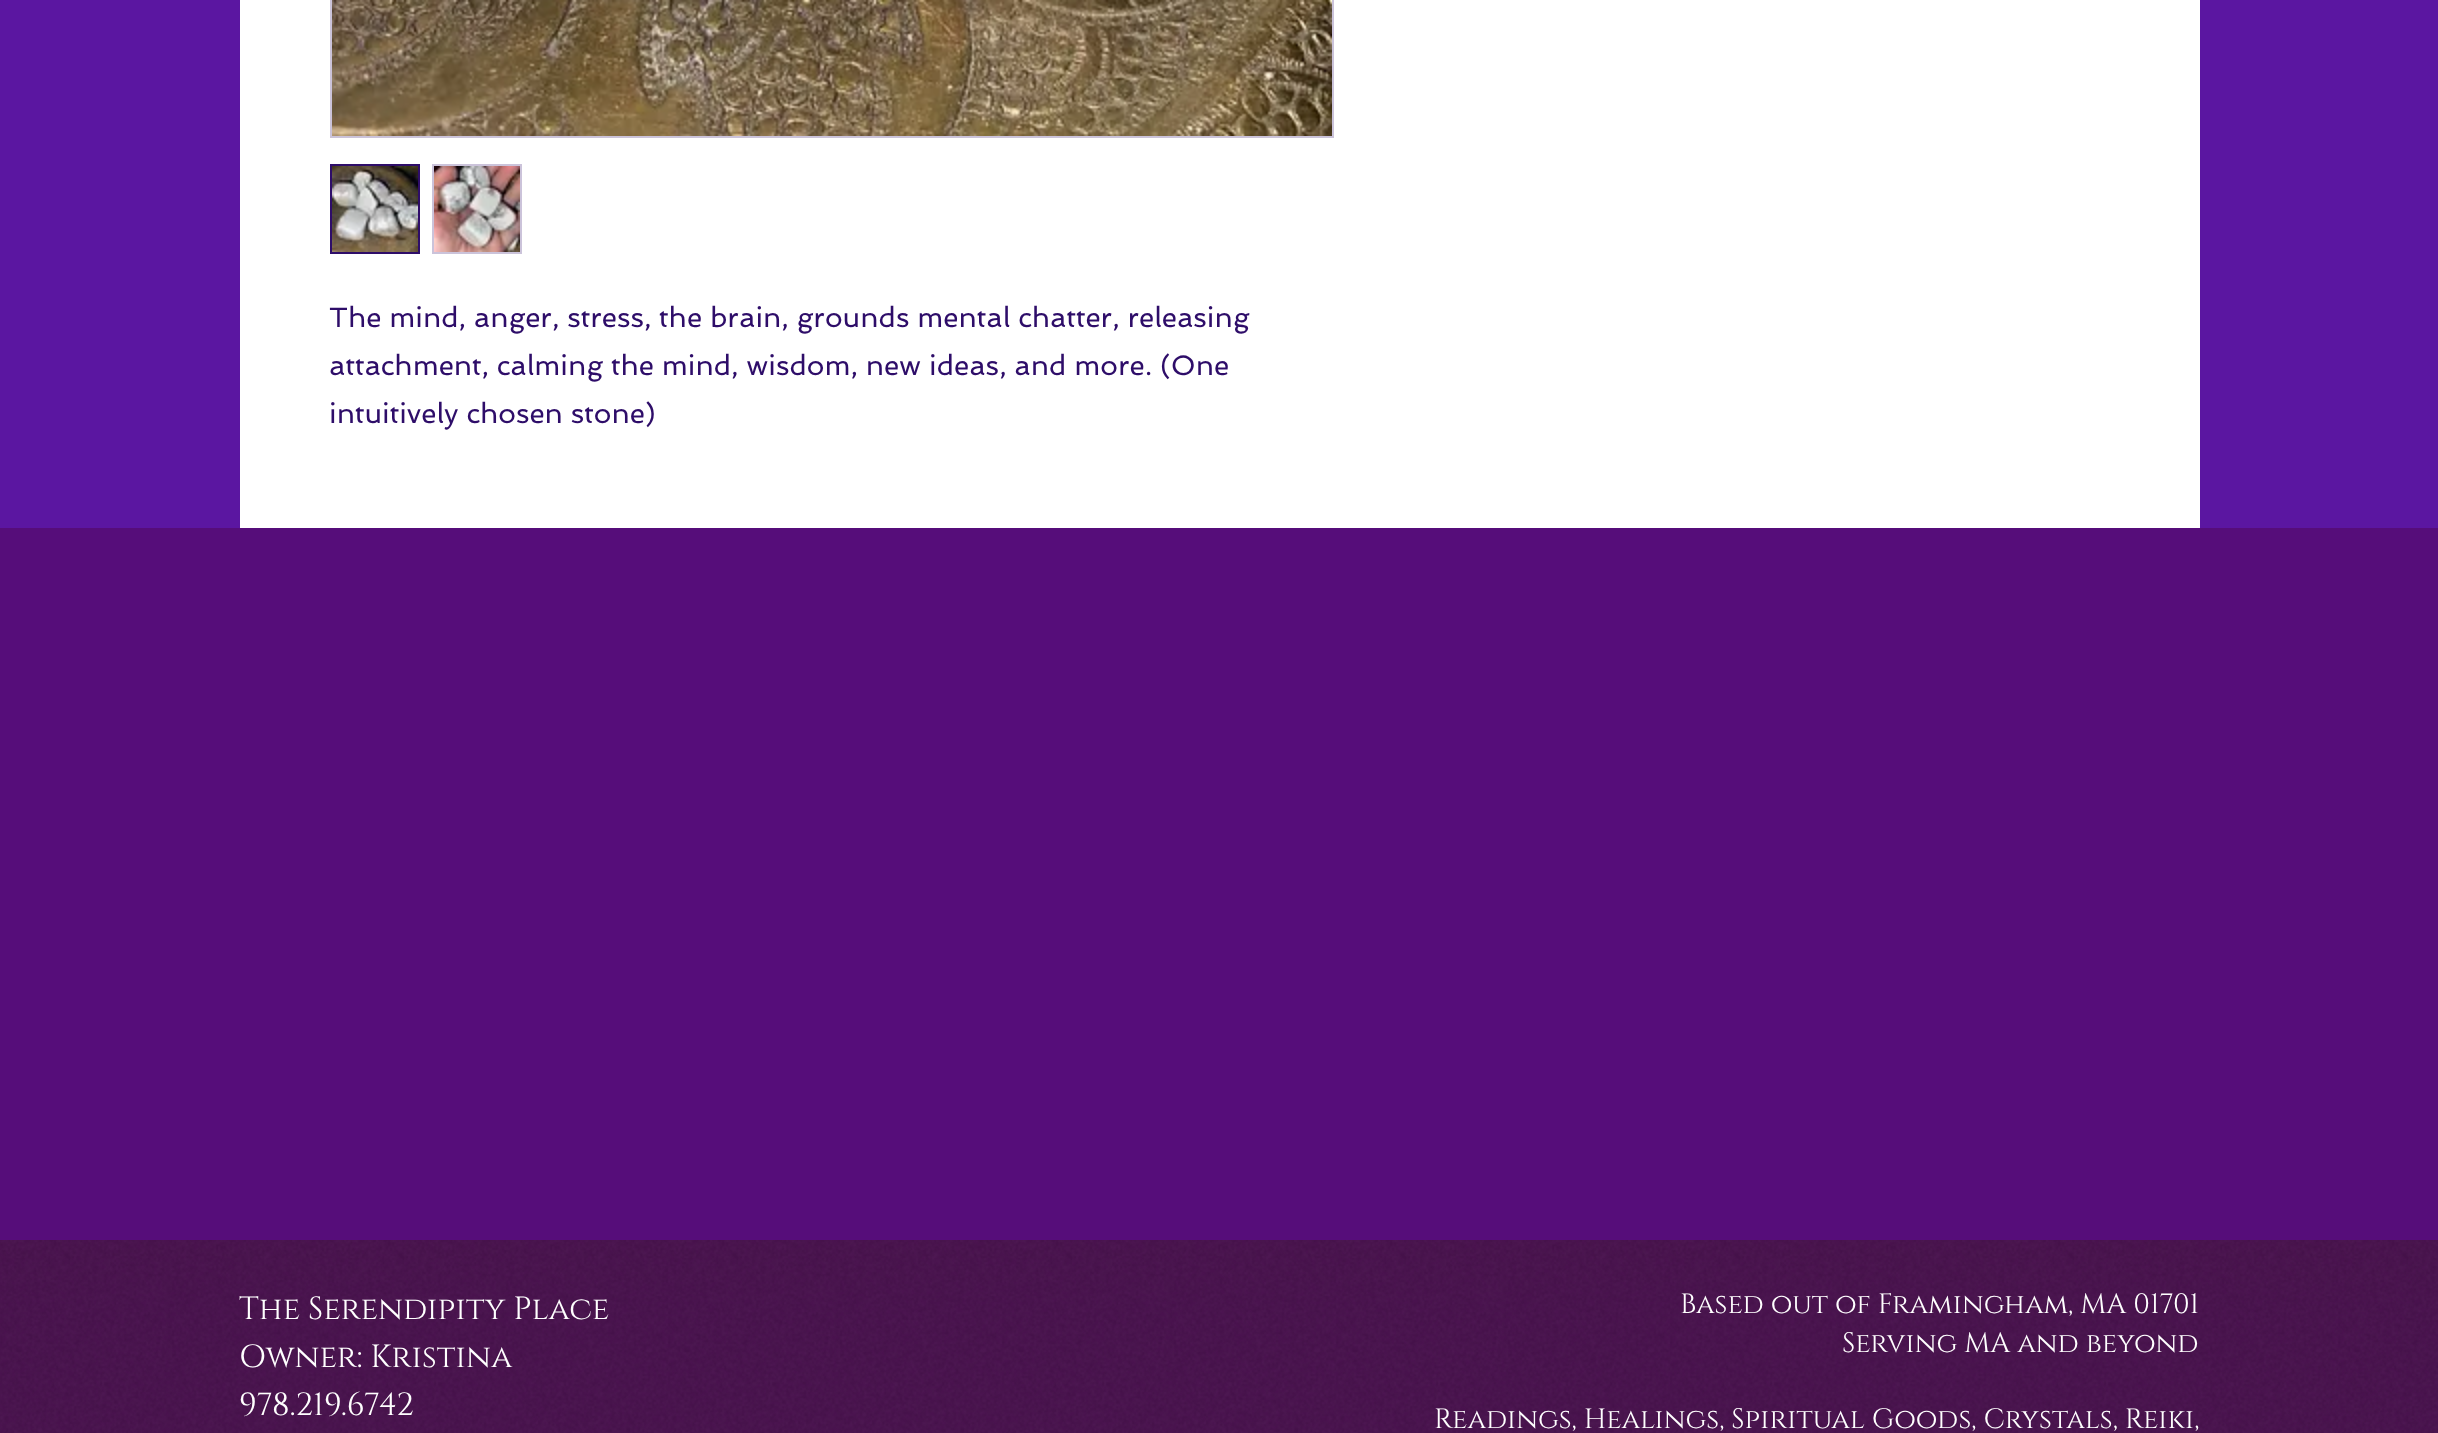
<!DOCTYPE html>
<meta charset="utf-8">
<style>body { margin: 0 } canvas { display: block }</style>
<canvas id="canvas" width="2438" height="1433"></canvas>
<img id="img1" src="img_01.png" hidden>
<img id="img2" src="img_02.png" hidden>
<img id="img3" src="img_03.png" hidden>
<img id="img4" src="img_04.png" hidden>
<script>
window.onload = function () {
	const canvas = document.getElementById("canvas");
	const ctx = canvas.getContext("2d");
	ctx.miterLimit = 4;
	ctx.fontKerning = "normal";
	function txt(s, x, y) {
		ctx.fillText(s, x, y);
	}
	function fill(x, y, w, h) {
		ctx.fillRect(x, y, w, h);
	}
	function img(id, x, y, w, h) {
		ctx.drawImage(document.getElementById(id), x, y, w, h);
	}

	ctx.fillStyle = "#5B16A1";
	fill(0, 0, 2438, 1433);
	ctx.fillStyle = "#FFFFFF";
	fill(240, 0, 1960, 528);
	ctx.strokeStyle = "#CBC3DA";
	ctx.lineWidth = 2;
	ctx.strokeRect(331, -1, 1002, 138);
	img("img1", 332, 0, 1000, 136);
	ctx.strokeStyle = "#2E0D69";
	ctx.strokeRect(331, 165, 88, 88);
	img("img2", 332, 166, 86, 86);
	ctx.fillStyle = "#CBC3DA";
	fill(432, 164, 90, 90);
	img("img3", 434, 166, 86, 86);
	ctx.fillStyle = "#4A134F";
	fill(0, 1240, 2438, 193);
	img("img4", 0, 1240, 2438, 193);
	ctx.fillStyle = "#560D7A";
	fill(0, 528, 2438, 712);
	ctx.font = "28px Spinnaker";
	ctx.fillStyle = "#2E0D69";
	txt("The mind, anger, stress, the brain, grounds mental chatter, releasing", 329, 327);
	txt("attachment, calming the mind, wisdom, new ideas, and more. (One", 329, 375);
	txt("intuitively chosen stone)", 329, 423);
	ctx.font = "32px Cinzel";
	ctx.fillStyle = "#FFFFFF";
	txt("The Serendipity Place", 239, 1319);
	txt("Owner: Kristina", 239, 1367);
	txt("978.219.6742", 239, 1415);
	ctx.font = "28px Cinzel";
	txt("Based out of Framingham, MA 01701", 1680, 1313);
	txt("Serving MA and beyond", 1842, 1352);
	txt("Readings, Healings, Spiritual Goods, Crystals, Reiki,", 1434, 1428);
};
</script>
